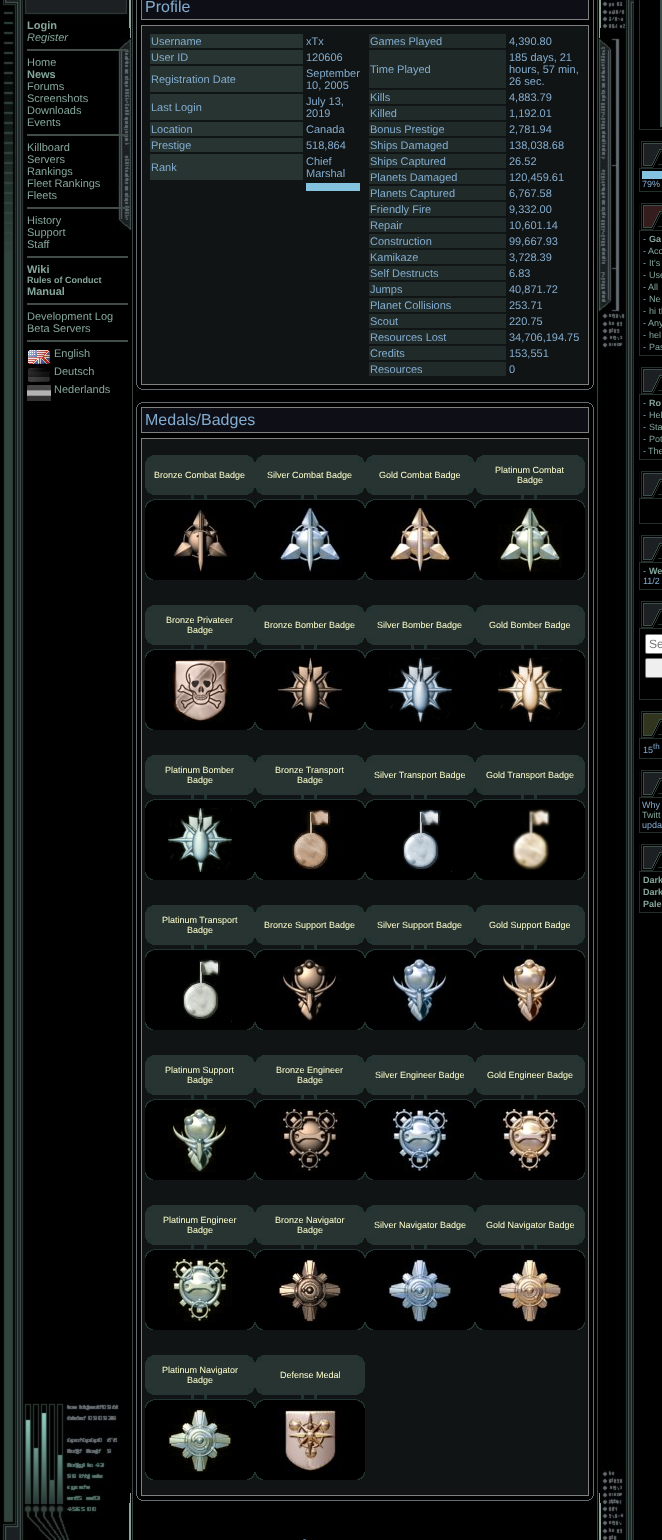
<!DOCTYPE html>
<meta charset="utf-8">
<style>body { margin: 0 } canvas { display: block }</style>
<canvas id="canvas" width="662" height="1540"></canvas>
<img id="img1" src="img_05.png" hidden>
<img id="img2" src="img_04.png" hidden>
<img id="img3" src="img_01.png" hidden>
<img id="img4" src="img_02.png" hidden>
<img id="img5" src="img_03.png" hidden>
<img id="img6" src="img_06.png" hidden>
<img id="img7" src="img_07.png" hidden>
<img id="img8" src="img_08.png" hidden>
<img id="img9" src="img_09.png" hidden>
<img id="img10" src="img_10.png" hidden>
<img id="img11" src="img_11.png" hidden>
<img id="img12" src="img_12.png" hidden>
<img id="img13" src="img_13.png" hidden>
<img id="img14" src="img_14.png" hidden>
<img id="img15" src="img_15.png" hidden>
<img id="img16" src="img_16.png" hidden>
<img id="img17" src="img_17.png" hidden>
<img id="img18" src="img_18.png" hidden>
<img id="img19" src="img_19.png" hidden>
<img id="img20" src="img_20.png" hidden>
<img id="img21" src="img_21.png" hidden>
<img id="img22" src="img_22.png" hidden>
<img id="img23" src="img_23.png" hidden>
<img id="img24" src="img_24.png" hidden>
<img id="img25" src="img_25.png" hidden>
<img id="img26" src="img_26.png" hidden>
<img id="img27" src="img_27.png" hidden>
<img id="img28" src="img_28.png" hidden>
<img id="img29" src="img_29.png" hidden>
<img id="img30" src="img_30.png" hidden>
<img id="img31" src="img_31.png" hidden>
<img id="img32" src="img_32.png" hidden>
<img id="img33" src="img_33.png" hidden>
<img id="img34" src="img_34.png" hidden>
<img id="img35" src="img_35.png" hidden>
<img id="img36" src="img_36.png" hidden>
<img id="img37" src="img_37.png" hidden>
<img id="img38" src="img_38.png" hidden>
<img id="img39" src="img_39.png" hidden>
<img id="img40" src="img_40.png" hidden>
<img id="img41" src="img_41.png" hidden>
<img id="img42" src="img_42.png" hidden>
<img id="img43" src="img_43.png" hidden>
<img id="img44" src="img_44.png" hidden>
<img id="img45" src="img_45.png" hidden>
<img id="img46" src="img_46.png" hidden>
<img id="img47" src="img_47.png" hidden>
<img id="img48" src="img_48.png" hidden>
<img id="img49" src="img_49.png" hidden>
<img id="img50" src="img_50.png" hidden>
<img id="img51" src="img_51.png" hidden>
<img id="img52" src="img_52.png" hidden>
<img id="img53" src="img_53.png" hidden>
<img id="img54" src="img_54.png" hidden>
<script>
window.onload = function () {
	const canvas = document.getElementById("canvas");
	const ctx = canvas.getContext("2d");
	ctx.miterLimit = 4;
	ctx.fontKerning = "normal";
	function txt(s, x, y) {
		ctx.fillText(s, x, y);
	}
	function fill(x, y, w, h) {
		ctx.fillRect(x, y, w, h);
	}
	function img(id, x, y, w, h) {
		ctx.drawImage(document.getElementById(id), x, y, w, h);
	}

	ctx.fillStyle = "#000000";
	fill(0, 0, 662, 1540);
	img("img1", 0, 0, 133, 250);
	ctx.fillStyle = "#424D4A";
	fill(27, 49, 101, 2);
	fill(27, 134, 101, 2);
	fill(27, 207, 101, 2);
	img("img2", 3, 250, 130, 1153);
	fill(27, 256, 101, 2);
	fill(27, 303, 101, 2);
	fill(27, 340, 101, 2);
	img("img3", 27, 349, 24, 16);
	img("img4", 27, 368, 23, 15);
	img("img5", 27, 385, 24, 16);
	img("img6", 0, 1403, 133, 137);
	ctx.fillStyle = "#636D73";
	fill(136, 0, 1, 385);
	ctx.fillStyle = "#0E0F16";
	fill(142, 0, 446, 19);
	ctx.fillStyle = "#808080";
	fill(588, 0, 1, 20);
	fill(141, 19, 448, 1);
	fill(141, 0, 1, 20);
	ctx.fillStyle = "#636D73";
	fill(593, 0, 1, 385);
	ctx.fillStyle = "#101414";
	fill(142, 26, 446, 358);
	ctx.fillStyle = "#808080";
	fill(141, 25, 448, 1);
	fill(588, 25, 1, 360);
	fill(141, 384, 448, 1);
	fill(141, 25, 1, 360);
	ctx.fillStyle = "#273432";
	fill(150, 34, 153, 14);
	fill(150, 50, 153, 14);
	fill(150, 66, 153, 26);
	fill(150, 94, 153, 26);
	fill(150, 122, 153, 14);
	fill(150, 138, 153, 14);
	fill(150, 154, 153, 26);
	ctx.fillStyle = "#83C3E0";
	fill(306, 183, 54, 8);
	ctx.fillStyle = "#202B29";
	fill(369, 34, 137, 14);
	fill(369, 50, 137, 38);
	fill(369, 90, 137, 14);
	fill(369, 106, 137, 14);
	fill(369, 122, 137, 14);
	fill(369, 138, 137, 14);
	fill(369, 154, 137, 14);
	fill(369, 170, 137, 14);
	fill(369, 186, 137, 14);
	fill(369, 202, 137, 14);
	fill(369, 218, 137, 14);
	fill(369, 234, 137, 14);
	fill(369, 250, 137, 14);
	fill(369, 266, 137, 14);
	fill(369, 282, 137, 14);
	fill(369, 298, 137, 14);
	fill(369, 314, 137, 14);
	fill(369, 330, 137, 14);
	fill(369, 346, 137, 14);
	fill(369, 362, 137, 14);
	img("img7", 137, 385, 4, 4);
	img("img8", 589, 385, 4, 4);
	ctx.fillStyle = "#636D73";
	fill(141, 389, 448, 1);
	fill(141, 402, 448, 1);
	img("img9", 137, 403, 4, 4);
	img("img10", 589, 403, 4, 4);
	fill(136, 407, 1, 1089);
	ctx.fillStyle = "#0E0F16";
	fill(142, 408, 446, 24);
	ctx.fillStyle = "#808080";
	fill(141, 407, 448, 1);
	fill(588, 407, 1, 26);
	fill(141, 432, 448, 1);
	fill(141, 407, 1, 26);
	ctx.fillStyle = "#636D73";
	fill(593, 407, 1, 1089);
	ctx.fillStyle = "#101414";
	fill(142, 439, 446, 1056);
	ctx.fillStyle = "#808080";
	fill(141, 438, 448, 1);
	fill(588, 438, 1, 1058);
	fill(141, 1495, 448, 1);
	fill(141, 438, 1, 1058);
	ctx.fillStyle = "#273432";
	fill(145, 455, 8, 40);
	img("img11", 145, 455, 7, 7);
	fill(153, 455, 94, 40);
	fill(247, 455, 8, 40);
	img("img12", 248, 455, 7, 7);
	img("img13", 145, 488, 7, 7);
	img("img14", 248, 488, 7, 7);
	img("img15", 153, 495, 94, 5);
	ctx.fillStyle = "#000000";
	fill(145, 500, 8, 80);
	img("img16", 145, 500, 8, 8);
	fill(153, 500, 94, 80);
	img("img17", 168, 508, 64, 64);
	fill(247, 500, 8, 80);
	img("img18", 247, 500, 8, 8);
	img("img19", 145, 572, 8, 8);
	img("img20", 247, 572, 8, 8);
	ctx.fillStyle = "#273432";
	fill(255, 455, 9, 40);
	img("img11", 255, 455, 7, 7);
	fill(264, 455, 92, 40);
	fill(356, 455, 9, 40);
	img("img12", 358, 455, 7, 7);
	img("img13", 255, 488, 7, 7);
	img("img14", 358, 488, 7, 7);
	img("img15", 263, 495, 94, 5);
	ctx.fillStyle = "#000000";
	fill(255, 500, 9, 80);
	img("img16", 255, 500, 8, 8);
	fill(264, 500, 92, 80);
	img("img21", 278, 508, 64, 64);
	fill(356, 500, 9, 80);
	img("img18", 357, 500, 8, 8);
	img("img19", 255, 572, 8, 8);
	img("img20", 357, 572, 8, 8);
	ctx.fillStyle = "#273432";
	fill(365, 455, 9, 40);
	img("img11", 365, 455, 7, 7);
	fill(374, 455, 92, 40);
	fill(466, 455, 9, 40);
	img("img12", 468, 455, 7, 7);
	img("img13", 365, 488, 7, 7);
	img("img14", 468, 488, 7, 7);
	img("img15", 373, 495, 94, 5);
	ctx.fillStyle = "#000000";
	fill(365, 500, 9, 80);
	img("img16", 365, 500, 8, 8);
	fill(374, 500, 92, 80);
	img("img22", 388, 508, 64, 64);
	fill(466, 500, 9, 80);
	img("img18", 467, 500, 8, 8);
	img("img19", 365, 572, 8, 8);
	img("img20", 467, 572, 8, 8);
	ctx.fillStyle = "#273432";
	fill(475, 455, 8, 40);
	img("img11", 475, 455, 7, 7);
	fill(483, 455, 94, 40);
	fill(577, 455, 8, 40);
	img("img12", 578, 455, 7, 7);
	img("img13", 475, 488, 7, 7);
	img("img14", 578, 488, 7, 7);
	img("img15", 483, 495, 94, 5);
	ctx.fillStyle = "#000000";
	fill(475, 500, 8, 80);
	img("img16", 475, 500, 8, 8);
	fill(483, 500, 94, 80);
	img("img23", 498, 508, 64, 64);
	fill(577, 500, 8, 80);
	img("img18", 577, 500, 8, 8);
	img("img19", 475, 572, 8, 8);
	img("img20", 577, 572, 8, 8);
	ctx.fillStyle = "#273432";
	fill(145, 605, 8, 40);
	img("img11", 145, 605, 7, 7);
	fill(153, 605, 94, 40);
	fill(247, 605, 8, 40);
	img("img12", 248, 605, 7, 7);
	img("img13", 145, 638, 7, 7);
	img("img14", 248, 638, 7, 7);
	img("img15", 153, 645, 94, 5);
	ctx.fillStyle = "#000000";
	fill(145, 650, 8, 80);
	img("img16", 145, 650, 8, 8);
	fill(153, 650, 94, 80);
	img("img24", 168, 658, 64, 64);
	fill(247, 650, 8, 80);
	img("img18", 247, 650, 8, 8);
	img("img19", 145, 722, 8, 8);
	img("img20", 247, 722, 8, 8);
	ctx.fillStyle = "#273432";
	fill(255, 605, 8, 40);
	img("img11", 255, 605, 7, 7);
	fill(263, 605, 94, 40);
	fill(357, 605, 8, 40);
	img("img12", 358, 605, 7, 7);
	img("img13", 255, 638, 7, 7);
	img("img14", 358, 638, 7, 7);
	img("img15", 263, 645, 94, 5);
	ctx.fillStyle = "#000000";
	fill(255, 650, 8, 80);
	img("img16", 255, 650, 8, 8);
	fill(263, 650, 94, 80);
	img("img25", 278, 658, 64, 64);
	fill(357, 650, 8, 80);
	img("img18", 357, 650, 8, 8);
	img("img19", 255, 722, 8, 8);
	img("img20", 357, 722, 8, 8);
	ctx.fillStyle = "#273432";
	fill(365, 605, 9, 40);
	img("img11", 365, 605, 7, 7);
	fill(374, 605, 92, 40);
	fill(466, 605, 9, 40);
	img("img12", 468, 605, 7, 7);
	img("img13", 365, 638, 7, 7);
	img("img14", 468, 638, 7, 7);
	img("img15", 373, 645, 94, 5);
	ctx.fillStyle = "#000000";
	fill(365, 650, 9, 80);
	img("img16", 365, 650, 8, 8);
	fill(374, 650, 92, 80);
	img("img26", 388, 658, 64, 64);
	fill(466, 650, 9, 80);
	img("img18", 467, 650, 8, 8);
	img("img19", 365, 722, 8, 8);
	img("img20", 467, 722, 8, 8);
	ctx.fillStyle = "#273432";
	fill(475, 605, 9, 40);
	img("img11", 475, 605, 7, 7);
	fill(484, 605, 92, 40);
	fill(576, 605, 9, 40);
	img("img12", 578, 605, 7, 7);
	img("img13", 475, 638, 7, 7);
	img("img14", 578, 638, 7, 7);
	img("img15", 483, 645, 94, 5);
	ctx.fillStyle = "#000000";
	fill(475, 650, 9, 80);
	img("img16", 475, 650, 8, 8);
	fill(484, 650, 92, 80);
	img("img27", 498, 658, 64, 64);
	fill(576, 650, 9, 80);
	img("img18", 577, 650, 8, 8);
	img("img19", 475, 722, 8, 8);
	img("img20", 577, 722, 8, 8);
	ctx.fillStyle = "#273432";
	fill(145, 755, 8, 40);
	img("img11", 145, 755, 7, 7);
	fill(153, 755, 94, 40);
	fill(247, 755, 8, 40);
	img("img12", 248, 755, 7, 7);
	img("img13", 145, 788, 7, 7);
	img("img14", 248, 788, 7, 7);
	img("img15", 153, 795, 94, 5);
	ctx.fillStyle = "#000000";
	fill(145, 800, 8, 80);
	img("img16", 145, 800, 8, 8);
	fill(153, 800, 94, 80);
	img("img28", 168, 808, 64, 64);
	fill(247, 800, 8, 80);
	img("img18", 247, 800, 8, 8);
	img("img19", 145, 872, 8, 8);
	img("img20", 247, 872, 8, 8);
	ctx.fillStyle = "#273432";
	fill(255, 755, 8, 40);
	img("img11", 255, 755, 7, 7);
	fill(263, 755, 94, 40);
	fill(357, 755, 8, 40);
	img("img12", 358, 755, 7, 7);
	img("img13", 255, 788, 7, 7);
	img("img14", 358, 788, 7, 7);
	img("img15", 263, 795, 94, 5);
	ctx.fillStyle = "#000000";
	fill(255, 800, 8, 80);
	img("img16", 255, 800, 8, 8);
	fill(263, 800, 94, 80);
	img("img29", 291, 808, 51, 64);
	fill(357, 800, 8, 80);
	img("img18", 357, 800, 8, 8);
	img("img19", 255, 872, 8, 8);
	img("img20", 357, 872, 8, 8);
	ctx.fillStyle = "#273432";
	fill(365, 755, 8, 40);
	img("img11", 365, 755, 7, 7);
	fill(373, 755, 94, 40);
	fill(467, 755, 8, 40);
	img("img12", 468, 755, 7, 7);
	img("img13", 365, 788, 7, 7);
	img("img14", 468, 788, 7, 7);
	img("img15", 373, 795, 94, 5);
	ctx.fillStyle = "#000000";
	fill(365, 800, 8, 80);
	img("img16", 365, 800, 8, 8);
	fill(373, 800, 94, 80);
	img("img30", 402, 808, 50, 64);
	fill(467, 800, 8, 80);
	img("img18", 467, 800, 8, 8);
	img("img19", 365, 872, 8, 8);
	img("img20", 467, 872, 8, 8);
	ctx.fillStyle = "#273432";
	fill(475, 755, 8, 40);
	img("img11", 475, 755, 7, 7);
	fill(483, 755, 94, 40);
	fill(577, 755, 8, 40);
	img("img12", 578, 755, 7, 7);
	img("img13", 475, 788, 7, 7);
	img("img14", 578, 788, 7, 7);
	img("img15", 483, 795, 94, 5);
	ctx.fillStyle = "#000000";
	fill(475, 800, 8, 80);
	img("img16", 475, 800, 8, 8);
	fill(483, 800, 94, 80);
	img("img31", 512, 808, 39, 62);
	fill(577, 800, 8, 80);
	img("img18", 577, 800, 8, 8);
	img("img19", 475, 872, 8, 8);
	img("img20", 577, 872, 8, 8);
	ctx.fillStyle = "#273432";
	fill(145, 905, 8, 40);
	img("img11", 145, 905, 7, 7);
	fill(153, 905, 94, 40);
	fill(247, 905, 8, 40);
	img("img12", 248, 905, 7, 7);
	img("img13", 145, 938, 7, 7);
	img("img14", 248, 938, 7, 7);
	img("img15", 153, 945, 94, 5);
	ctx.fillStyle = "#000000";
	fill(145, 950, 8, 80);
	img("img16", 145, 950, 8, 8);
	fill(153, 950, 94, 80);
	img("img32", 182, 958, 50, 64);
	fill(247, 950, 8, 80);
	img("img18", 247, 950, 8, 8);
	img("img19", 145, 1022, 8, 8);
	img("img20", 247, 1022, 8, 8);
	ctx.fillStyle = "#273432";
	fill(255, 905, 8, 40);
	img("img11", 255, 905, 7, 7);
	fill(263, 905, 94, 40);
	fill(357, 905, 8, 40);
	img("img12", 358, 905, 7, 7);
	img("img13", 255, 938, 7, 7);
	img("img14", 358, 938, 7, 7);
	img("img15", 263, 945, 94, 5);
	ctx.fillStyle = "#000000";
	fill(255, 950, 8, 80);
	img("img16", 255, 950, 8, 8);
	fill(263, 950, 94, 80);
	img("img33", 278, 958, 64, 64);
	fill(357, 950, 8, 80);
	img("img18", 357, 950, 8, 8);
	img("img19", 255, 1022, 8, 8);
	img("img20", 357, 1022, 8, 8);
	ctx.fillStyle = "#273432";
	fill(365, 905, 9, 40);
	img("img11", 365, 905, 7, 7);
	fill(374, 905, 92, 40);
	fill(466, 905, 9, 40);
	img("img12", 468, 905, 7, 7);
	img("img13", 365, 938, 7, 7);
	img("img14", 468, 938, 7, 7);
	img("img15", 373, 945, 94, 5);
	ctx.fillStyle = "#000000";
	fill(365, 950, 9, 80);
	img("img16", 365, 950, 8, 8);
	fill(374, 950, 92, 80);
	img("img34", 388, 958, 64, 64);
	fill(466, 950, 9, 80);
	img("img18", 467, 950, 8, 8);
	img("img19", 365, 1022, 8, 8);
	img("img20", 467, 1022, 8, 8);
	ctx.fillStyle = "#273432";
	fill(475, 905, 9, 40);
	img("img11", 475, 905, 7, 7);
	fill(484, 905, 92, 40);
	fill(576, 905, 9, 40);
	img("img12", 578, 905, 7, 7);
	img("img13", 475, 938, 7, 7);
	img("img14", 578, 938, 7, 7);
	img("img15", 483, 945, 94, 5);
	ctx.fillStyle = "#000000";
	fill(475, 950, 9, 80);
	img("img16", 475, 950, 8, 8);
	fill(484, 950, 92, 80);
	img("img35", 498, 958, 64, 64);
	fill(576, 950, 9, 80);
	img("img18", 577, 950, 8, 8);
	img("img19", 475, 1022, 8, 8);
	img("img20", 577, 1022, 8, 8);
	ctx.fillStyle = "#273432";
	fill(145, 1055, 8, 40);
	img("img11", 145, 1055, 7, 7);
	fill(153, 1055, 94, 40);
	fill(247, 1055, 8, 40);
	img("img12", 248, 1055, 7, 7);
	img("img13", 145, 1088, 7, 7);
	img("img14", 248, 1088, 7, 7);
	img("img15", 153, 1095, 94, 5);
	ctx.fillStyle = "#000000";
	fill(145, 1100, 8, 80);
	img("img16", 145, 1100, 8, 8);
	fill(153, 1100, 94, 80);
	img("img36", 168, 1108, 64, 64);
	fill(247, 1100, 8, 80);
	img("img18", 247, 1100, 8, 8);
	img("img19", 145, 1172, 8, 8);
	img("img20", 247, 1172, 8, 8);
	ctx.fillStyle = "#273432";
	fill(255, 1055, 8, 40);
	img("img11", 255, 1055, 7, 7);
	fill(263, 1055, 94, 40);
	fill(357, 1055, 8, 40);
	img("img12", 358, 1055, 7, 7);
	img("img13", 255, 1088, 7, 7);
	img("img14", 358, 1088, 7, 7);
	img("img15", 263, 1095, 94, 5);
	ctx.fillStyle = "#000000";
	fill(255, 1100, 8, 80);
	img("img16", 255, 1100, 8, 8);
	fill(263, 1100, 94, 80);
	img("img37", 278, 1108, 64, 64);
	fill(357, 1100, 8, 80);
	img("img18", 357, 1100, 8, 8);
	img("img19", 255, 1172, 8, 8);
	img("img20", 357, 1172, 8, 8);
	ctx.fillStyle = "#273432";
	fill(365, 1055, 8, 40);
	img("img11", 365, 1055, 7, 7);
	fill(373, 1055, 94, 40);
	fill(467, 1055, 8, 40);
	img("img12", 468, 1055, 7, 7);
	img("img13", 365, 1088, 7, 7);
	img("img14", 468, 1088, 7, 7);
	img("img15", 373, 1095, 94, 5);
	ctx.fillStyle = "#000000";
	fill(365, 1100, 8, 80);
	img("img16", 365, 1100, 8, 8);
	fill(373, 1100, 94, 80);
	img("img38", 388, 1108, 64, 64);
	fill(467, 1100, 8, 80);
	img("img18", 467, 1100, 8, 8);
	img("img19", 365, 1172, 8, 8);
	img("img20", 467, 1172, 8, 8);
	ctx.fillStyle = "#273432";
	fill(475, 1055, 9, 40);
	img("img11", 475, 1055, 7, 7);
	fill(484, 1055, 92, 40);
	fill(576, 1055, 9, 40);
	img("img12", 578, 1055, 7, 7);
	img("img13", 475, 1088, 7, 7);
	img("img14", 578, 1088, 7, 7);
	img("img15", 483, 1095, 94, 5);
	ctx.fillStyle = "#000000";
	fill(475, 1100, 9, 80);
	img("img16", 475, 1100, 8, 8);
	fill(484, 1100, 92, 80);
	img("img39", 498, 1108, 64, 64);
	fill(576, 1100, 9, 80);
	img("img18", 577, 1100, 8, 8);
	img("img19", 475, 1172, 8, 8);
	img("img20", 577, 1172, 8, 8);
	ctx.fillStyle = "#273432";
	fill(145, 1205, 8, 40);
	img("img11", 145, 1205, 7, 7);
	fill(153, 1205, 94, 40);
	fill(247, 1205, 8, 40);
	img("img12", 248, 1205, 7, 7);
	img("img13", 145, 1238, 7, 7);
	img("img14", 248, 1238, 7, 7);
	img("img15", 153, 1245, 94, 5);
	ctx.fillStyle = "#000000";
	fill(145, 1250, 8, 80);
	img("img16", 145, 1250, 8, 8);
	fill(153, 1250, 94, 80);
	img("img40", 168, 1258, 64, 64);
	fill(247, 1250, 8, 80);
	img("img18", 247, 1250, 8, 8);
	img("img19", 145, 1322, 8, 8);
	img("img20", 247, 1322, 8, 8);
	ctx.fillStyle = "#273432";
	fill(255, 1205, 8, 40);
	img("img11", 255, 1205, 7, 7);
	fill(263, 1205, 94, 40);
	fill(357, 1205, 8, 40);
	img("img12", 358, 1205, 7, 7);
	img("img13", 255, 1238, 7, 7);
	img("img14", 358, 1238, 7, 7);
	img("img15", 263, 1245, 94, 5);
	ctx.fillStyle = "#000000";
	fill(255, 1250, 8, 80);
	img("img16", 255, 1250, 8, 8);
	fill(263, 1250, 94, 80);
	img("img41", 278, 1258, 64, 64);
	fill(357, 1250, 8, 80);
	img("img18", 357, 1250, 8, 8);
	img("img19", 255, 1322, 8, 8);
	img("img20", 357, 1322, 8, 8);
	ctx.fillStyle = "#273432";
	fill(365, 1205, 8, 40);
	img("img11", 365, 1205, 7, 7);
	fill(373, 1205, 94, 40);
	fill(467, 1205, 8, 40);
	img("img12", 468, 1205, 7, 7);
	img("img13", 365, 1238, 7, 7);
	img("img14", 468, 1238, 7, 7);
	img("img15", 373, 1245, 94, 5);
	ctx.fillStyle = "#000000";
	fill(365, 1250, 8, 80);
	img("img16", 365, 1250, 8, 8);
	fill(373, 1250, 94, 80);
	img("img42", 388, 1258, 64, 64);
	fill(467, 1250, 8, 80);
	img("img18", 467, 1250, 8, 8);
	img("img19", 365, 1322, 8, 8);
	img("img20", 467, 1322, 8, 8);
	ctx.fillStyle = "#273432";
	fill(475, 1205, 8, 40);
	img("img11", 475, 1205, 7, 7);
	fill(483, 1205, 94, 40);
	fill(577, 1205, 8, 40);
	img("img12", 578, 1205, 7, 7);
	img("img13", 475, 1238, 7, 7);
	img("img14", 578, 1238, 7, 7);
	img("img15", 483, 1245, 94, 5);
	ctx.fillStyle = "#000000";
	fill(475, 1250, 8, 80);
	img("img16", 475, 1250, 8, 8);
	fill(483, 1250, 94, 80);
	img("img43", 498, 1258, 64, 64);
	fill(577, 1250, 8, 80);
	img("img18", 577, 1250, 8, 8);
	img("img19", 475, 1322, 8, 8);
	img("img20", 577, 1322, 8, 8);
	ctx.fillStyle = "#273432";
	fill(145, 1355, 8, 40);
	img("img11", 145, 1355, 7, 7);
	fill(153, 1355, 94, 40);
	fill(247, 1355, 8, 40);
	img("img12", 248, 1355, 7, 7);
	img("img13", 145, 1388, 7, 7);
	img("img14", 248, 1388, 7, 7);
	img("img15", 153, 1395, 94, 5);
	ctx.fillStyle = "#000000";
	fill(145, 1400, 8, 80);
	img("img16", 145, 1400, 8, 8);
	fill(153, 1400, 94, 80);
	img("img44", 168, 1408, 64, 64);
	fill(247, 1400, 8, 80);
	img("img18", 247, 1400, 8, 8);
	img("img19", 145, 1472, 8, 8);
	img("img20", 247, 1472, 8, 8);
	ctx.fillStyle = "#273432";
	fill(255, 1355, 11, 40);
	img("img11", 255, 1355, 7, 7);
	fill(266, 1355, 88, 40);
	fill(354, 1355, 11, 40);
	img("img12", 358, 1355, 7, 7);
	img("img13", 255, 1388, 7, 7);
	img("img14", 358, 1388, 7, 7);
	img("img15", 263, 1395, 94, 5);
	ctx.fillStyle = "#000000";
	fill(255, 1400, 11, 80);
	img("img16", 255, 1400, 8, 8);
	fill(266, 1400, 88, 80);
	img("img45", 278, 1408, 64, 64);
	fill(354, 1400, 11, 80);
	img("img18", 357, 1400, 8, 8);
	img("img19", 255, 1472, 8, 8);
	img("img20", 357, 1472, 8, 8);
	img("img7", 137, 1496, 4, 4);
	img("img8", 589, 1496, 4, 4);
	ctx.fillStyle = "#636D73";
	fill(141, 1500, 448, 1);
	img("img46", 597, 350, 37, 1190);
	img("img47", 597, 0, 37, 350);
	img("img48", 597, 1469, 32, 71);
	ctx.fillStyle = "#213029";
	fill(639, 129, 23, 1);
	fill(639, 0, 1, 130);
	ctx.strokeStyle = "#3C4F4B";
	ctx.strokeRect(660.5, -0.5, 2, 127);
	ctx.strokeRect(661.5, -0.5, 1, 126);
	img("img49", 639, 141, 23, 11);
	ctx.fillStyle = "#26312C";
	fill(661, 164, 1, 1);
	img("img50", 639, 152, 22, 16);
	ctx.fillStyle = "#213029";
	fill(639, 168, 23, 1);
	fill(639, 191, 23, 1);
	fill(639, 168, 1, 24);
	ctx.fillStyle = "#83C3E0";
	fill(642, 171, 20, 8);
	img("img51", 639, 203, 23, 11);
	ctx.fillStyle = "#26312C";
	fill(661, 226, 1, 1);
	img("img52", 639, 214, 22, 16);
	ctx.fillStyle = "#213029";
	fill(639, 230, 23, 1);
	fill(639, 355, 23, 1);
	fill(639, 230, 1, 126);
	img("img49", 639, 367, 23, 11);
	ctx.fillStyle = "#26312C";
	fill(661, 390, 1, 1);
	img("img50", 639, 378, 22, 16);
	ctx.fillStyle = "#213029";
	fill(639, 394, 23, 1);
	fill(639, 459, 23, 1);
	fill(639, 394, 1, 66);
	img("img49", 639, 471, 23, 11);
	ctx.fillStyle = "#26312C";
	fill(661, 494, 1, 1);
	img("img50", 639, 482, 22, 16);
	ctx.fillStyle = "#213029";
	fill(639, 498, 23, 1);
	fill(639, 523, 23, 1);
	fill(639, 498, 1, 26);
	img("img49", 639, 535, 23, 11);
	ctx.fillStyle = "#26312C";
	fill(661, 558, 1, 1);
	img("img50", 639, 546, 22, 16);
	ctx.fillStyle = "#213029";
	fill(639, 562, 23, 1);
	fill(639, 589, 23, 1);
	fill(639, 562, 1, 28);
	img("img49", 639, 601, 23, 11);
	ctx.fillStyle = "#26312C";
	fill(661, 624, 1, 1);
	img("img50", 639, 612, 22, 16);
	ctx.fillStyle = "#213029";
	fill(639, 628, 23, 1);
	fill(639, 699, 23, 1);
	fill(639, 628, 1, 72);
	ctx.fillStyle = "#FFFFFF";
	ctx.beginPath();
	ctx.roundRect(645.5, 634.5, 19, 19, 1.5);
	ctx.fill();
	ctx.strokeStyle = "#767676";
	ctx.stroke();
	ctx.fillStyle = "#EFEFEF";
	ctx.beginPath();
	ctx.roundRect(645.5, 658.5, 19, 19, 1.5);
	ctx.fill();
	ctx.stroke();
	img("img53", 639, 711, 23, 11);
	ctx.fillStyle = "#26312C";
	fill(661, 734, 1, 1);
	img("img54", 639, 722, 22, 16);
	ctx.fillStyle = "#213029";
	fill(639, 738, 23, 1);
	fill(639, 758, 23, 1);
	fill(639, 738, 1, 21);
	img("img49", 639, 770, 23, 11);
	ctx.fillStyle = "#26312C";
	fill(661, 793, 1, 1);
	img("img50", 639, 781, 22, 16);
	ctx.fillStyle = "#213029";
	fill(639, 797, 23, 1);
	fill(639, 832, 23, 1);
	fill(639, 797, 1, 36);
	img("img49", 639, 844, 23, 11);
	ctx.fillStyle = "#26312C";
	fill(661, 867, 1, 1);
	img("img50", 639, 855, 22, 16);
	ctx.fillStyle = "#213029";
	fill(639, 871, 23, 1);
	fill(639, 912, 23, 1);
	fill(639, 871, 1, 42);
	ctx.font = "bold 11px Liberation Sans";
	ctx.fillStyle = "#84A69C";
	txt("Login", 27, 29);
	ctx.font = "italic 11px Liberation Sans";
	txt("Register", 27, 41);
	ctx.font = "11px Liberation Sans";
	txt("Home", 27, 66);
	ctx.font = "bold 11px Liberation Sans";
	txt("News", 27, 78);
	ctx.font = "11px Liberation Sans";
	txt("Forums", 27, 90);
	txt("Screenshots", 27, 102);
	txt("Downloads", 27, 114);
	txt("Events", 27, 126);
	txt("Killboard", 27, 151);
	txt("Servers", 27, 163);
	txt("Rankings", 27, 175);
	txt("Fleet Rankings", 27, 187);
	txt("Fleets", 27, 199);
	txt("History", 27, 224);
	txt("Support", 27, 236);
	txt("Staff", 27, 248);
	ctx.font = "bold 11px Liberation Sans";
	txt("Wiki", 27, 273);
	ctx.font = "bold 9px Liberation Sans";
	txt("Rules of Conduct", 27, 283);
	ctx.font = "bold 11px Liberation Sans";
	txt("Manual", 27, 295);
	ctx.font = "11px Liberation Sans";
	txt("Development Log", 27, 320);
	txt("Beta Servers", 27, 332);
	txt("English", 54, 357);
	txt("Deutsch", 54, 375);
	txt("Nederlands", 54, 393);
	ctx.font = "16px Liberation Sans";
	ctx.fillStyle = "#83ACCF";
	txt("Profile", 145, 12);
	ctx.font = "11px Liberation Sans";
	txt("Username", 151, 45);
	txt("xTx", 306, 45);
	txt("User ID", 151, 61);
	txt("120606", 306, 61);
	txt("Registration Date", 151, 83);
	txt("September", 306, 77);
	txt("10, 2005", 306, 89);
	txt("Last Login", 151, 111);
	txt("July 13,", 306, 105);
	txt("2019", 306, 117);
	txt("Location", 151, 133);
	txt("Canada", 306, 133);
	txt("Prestige", 151, 149);
	txt("518,864", 306, 149);
	txt("Rank", 151, 171);
	txt("Chief", 306, 165);
	txt("Marshal", 306, 177);
	txt("Games Played", 370, 45);
	txt("4,390.80", 509, 45);
	txt("Time Played", 370, 73);
	txt("185 days, 21", 509, 61);
	txt("hours, 57 min,", 509, 73);
	txt("26 sec.", 509, 85);
	txt("Kills", 370, 101);
	txt("4,883.79", 509, 101);
	txt("Killed", 370, 117);
	txt("1,192.01", 509, 117);
	txt("Bonus Prestige", 370, 133);
	txt("2,781.94", 509, 133);
	txt("Ships Damaged", 370, 149);
	txt("138,038.68", 509, 149);
	txt("Ships Captured", 370, 165);
	txt("26.52", 509, 165);
	txt("Planets Damaged", 370, 181);
	txt("120,459.61", 509, 181);
	txt("Planets Captured", 370, 197);
	txt("6,767.58", 509, 197);
	txt("Friendly Fire", 370, 213);
	txt("9,332.00", 509, 213);
	txt("Repair", 370, 229);
	txt("10,601.14", 509, 229);
	txt("Construction", 370, 245);
	txt("99,667.93", 509, 245);
	txt("Kamikaze", 370, 261);
	txt("3,728.39", 509, 261);
	txt("Self Destructs", 370, 277);
	txt("6.83", 509, 277);
	txt("Jumps", 370, 293);
	txt("40,871.72", 509, 293);
	txt("Planet Collisions", 370, 309);
	txt("253.71", 509, 309);
	txt("Scout", 370, 325);
	txt("220.75", 509, 325);
	txt("Resources Lost", 370, 341);
	txt("34,706,194.75", 509, 341);
	txt("Credits", 370, 357);
	txt("153,551", 509, 357);
	txt("Resources", 370, 373);
	txt("0", 509, 373);
	ctx.font = "16px Liberation Sans";
	txt("Medals/Badges", 145, 425);
	ctx.font = "9px Liberation Sans";
	ctx.fillStyle = "#FFFFCC";
	txt("Bronze Combat Badge", 154, 478);
	txt("Silver Combat Badge", 267, 478);
	txt("Gold Combat Badge", 379, 478);
	txt("Platinum Combat", 495, 473);
	txt("Badge", 517, 483);
	txt("Bronze Privateer", 166, 623);
	txt("Badge", 187, 633);
	txt("Bronze Bomber Badge", 264, 628);
	txt("Silver Bomber Badge", 377, 628);
	txt("Gold Bomber Badge", 489, 628);
	txt("Platinum Bomber", 165, 773);
	txt("Badge", 187, 783);
	txt("Bronze Transport", 275, 773);
	txt("Badge", 297, 783);
	txt("Silver Transport Badge", 374, 778);
	txt("Gold Transport Badge", 486, 778);
	txt("Platinum Transport", 162, 923);
	txt("Badge", 187, 933);
	txt("Bronze Support Badge", 264, 928);
	txt("Silver Support Badge", 377, 928);
	txt("Gold Support Badge", 489, 928);
	txt("Platinum Support", 165, 1073);
	txt("Badge", 187, 1083);
	txt("Bronze Engineer", 276, 1073);
	txt("Badge", 297, 1083);
	txt("Silver Engineer Badge", 375, 1078);
	txt("Gold Engineer Badge", 487, 1078);
	txt("Platinum Engineer", 163, 1223);
	txt("Badge", 187, 1233);
	txt("Bronze Navigator", 275, 1223);
	txt("Badge", 297, 1233);
	txt("Silver Navigator Badge", 374, 1228);
	txt("Gold Navigator Badge", 486, 1228);
	txt("Platinum Navigator", 162, 1373);
	txt("Badge", 187, 1383);
	txt("Defense Medal", 280, 1378);
	ctx.fillStyle = "#83ACCF";
	txt("-", 303, 1542);
	txt("79%", 642, 187);
	txt("-", 643, 242);
	ctx.font = "bold 9px Liberation Sans";
	ctx.fillStyle = "#84A69C";
	txt("Ga", 649, 242);
	ctx.font = "9px Liberation Sans";
	ctx.fillStyle = "#83ACCF";
	txt("-", 643, 254);
	ctx.fillStyle = "#84A69C";
	txt("Acc", 648, 254);
	ctx.fillStyle = "#83ACCF";
	txt("-", 643, 266);
	ctx.fillStyle = "#84A69C";
	txt("It's", 649, 266);
	ctx.fillStyle = "#83ACCF";
	txt("-", 643, 278);
	ctx.fillStyle = "#84A69C";
	txt("Use", 649, 278);
	ctx.fillStyle = "#83ACCF";
	txt("-", 643, 290);
	ctx.fillStyle = "#84A69C";
	txt("All", 648, 290);
	ctx.fillStyle = "#83ACCF";
	txt("-", 643, 302);
	ctx.fillStyle = "#84A69C";
	txt("Ne", 649, 302);
	ctx.fillStyle = "#83ACCF";
	txt("-", 643, 314);
	ctx.fillStyle = "#84A69C";
	txt("hi th", 649, 314);
	ctx.fillStyle = "#83ACCF";
	txt("-", 643, 326);
	ctx.fillStyle = "#84A69C";
	txt("Any", 648, 326);
	ctx.fillStyle = "#83ACCF";
	txt("-", 643, 338);
	ctx.fillStyle = "#84A69C";
	txt("hel", 649, 338);
	ctx.fillStyle = "#83ACCF";
	txt("-", 643, 350);
	ctx.fillStyle = "#84A69C";
	txt("Pas", 649, 350);
	ctx.fillStyle = "#83ACCF";
	txt("-", 643, 406);
	ctx.font = "bold 9px Liberation Sans";
	ctx.fillStyle = "#84A69C";
	txt("Ro", 649, 406);
	ctx.font = "9px Liberation Sans";
	ctx.fillStyle = "#83ACCF";
	txt("-", 643, 418);
	ctx.fillStyle = "#84A69C";
	txt("Hel", 649, 418);
	ctx.fillStyle = "#83ACCF";
	txt("-", 643, 430);
	ctx.fillStyle = "#84A69C";
	txt("Sta", 649, 430);
	ctx.fillStyle = "#83ACCF";
	txt("-", 643, 442);
	ctx.fillStyle = "#84A69C";
	txt("Pot", 649, 442);
	ctx.fillStyle = "#83ACCF";
	txt("-", 643, 454);
	ctx.fillStyle = "#84A69C";
	txt("The", 648, 454);
	ctx.fillStyle = "#83ACCF";
	txt("-", 643, 574);
	ctx.font = "bold 9px Liberation Sans";
	ctx.fillStyle = "#84A69C";
	txt("We", 649, 574);
	ctx.font = "9px Liberation Sans";
	ctx.fillStyle = "#83ACCF";
	txt("11/2", 643, 584);
	ctx.font = "12px Liberation Sans";
	ctx.fillStyle = "#757575";
	txt("Se", 649, 648);
	ctx.font = "9px Liberation Sans";
	ctx.fillStyle = "#83ACCF";
	txt("15", 643, 753);
	ctx.font = "8px Liberation Sans";
	txt("th", 653, 749);
	ctx.font = "9px Liberation Sans";
	txt("Why", 642, 808);
	ctx.fillStyle = "#84A69C";
	txt("Twitt", 642, 818);
	ctx.fillStyle = "#83ACCF";
	txt("upda", 642, 828);
	ctx.font = "bold 9px Liberation Sans";
	ctx.fillStyle = "#84A69C";
	txt("Dark", 643, 883);
	txt("Dark", 643, 895);
	txt("Pale", 643, 907);
};
</script>
